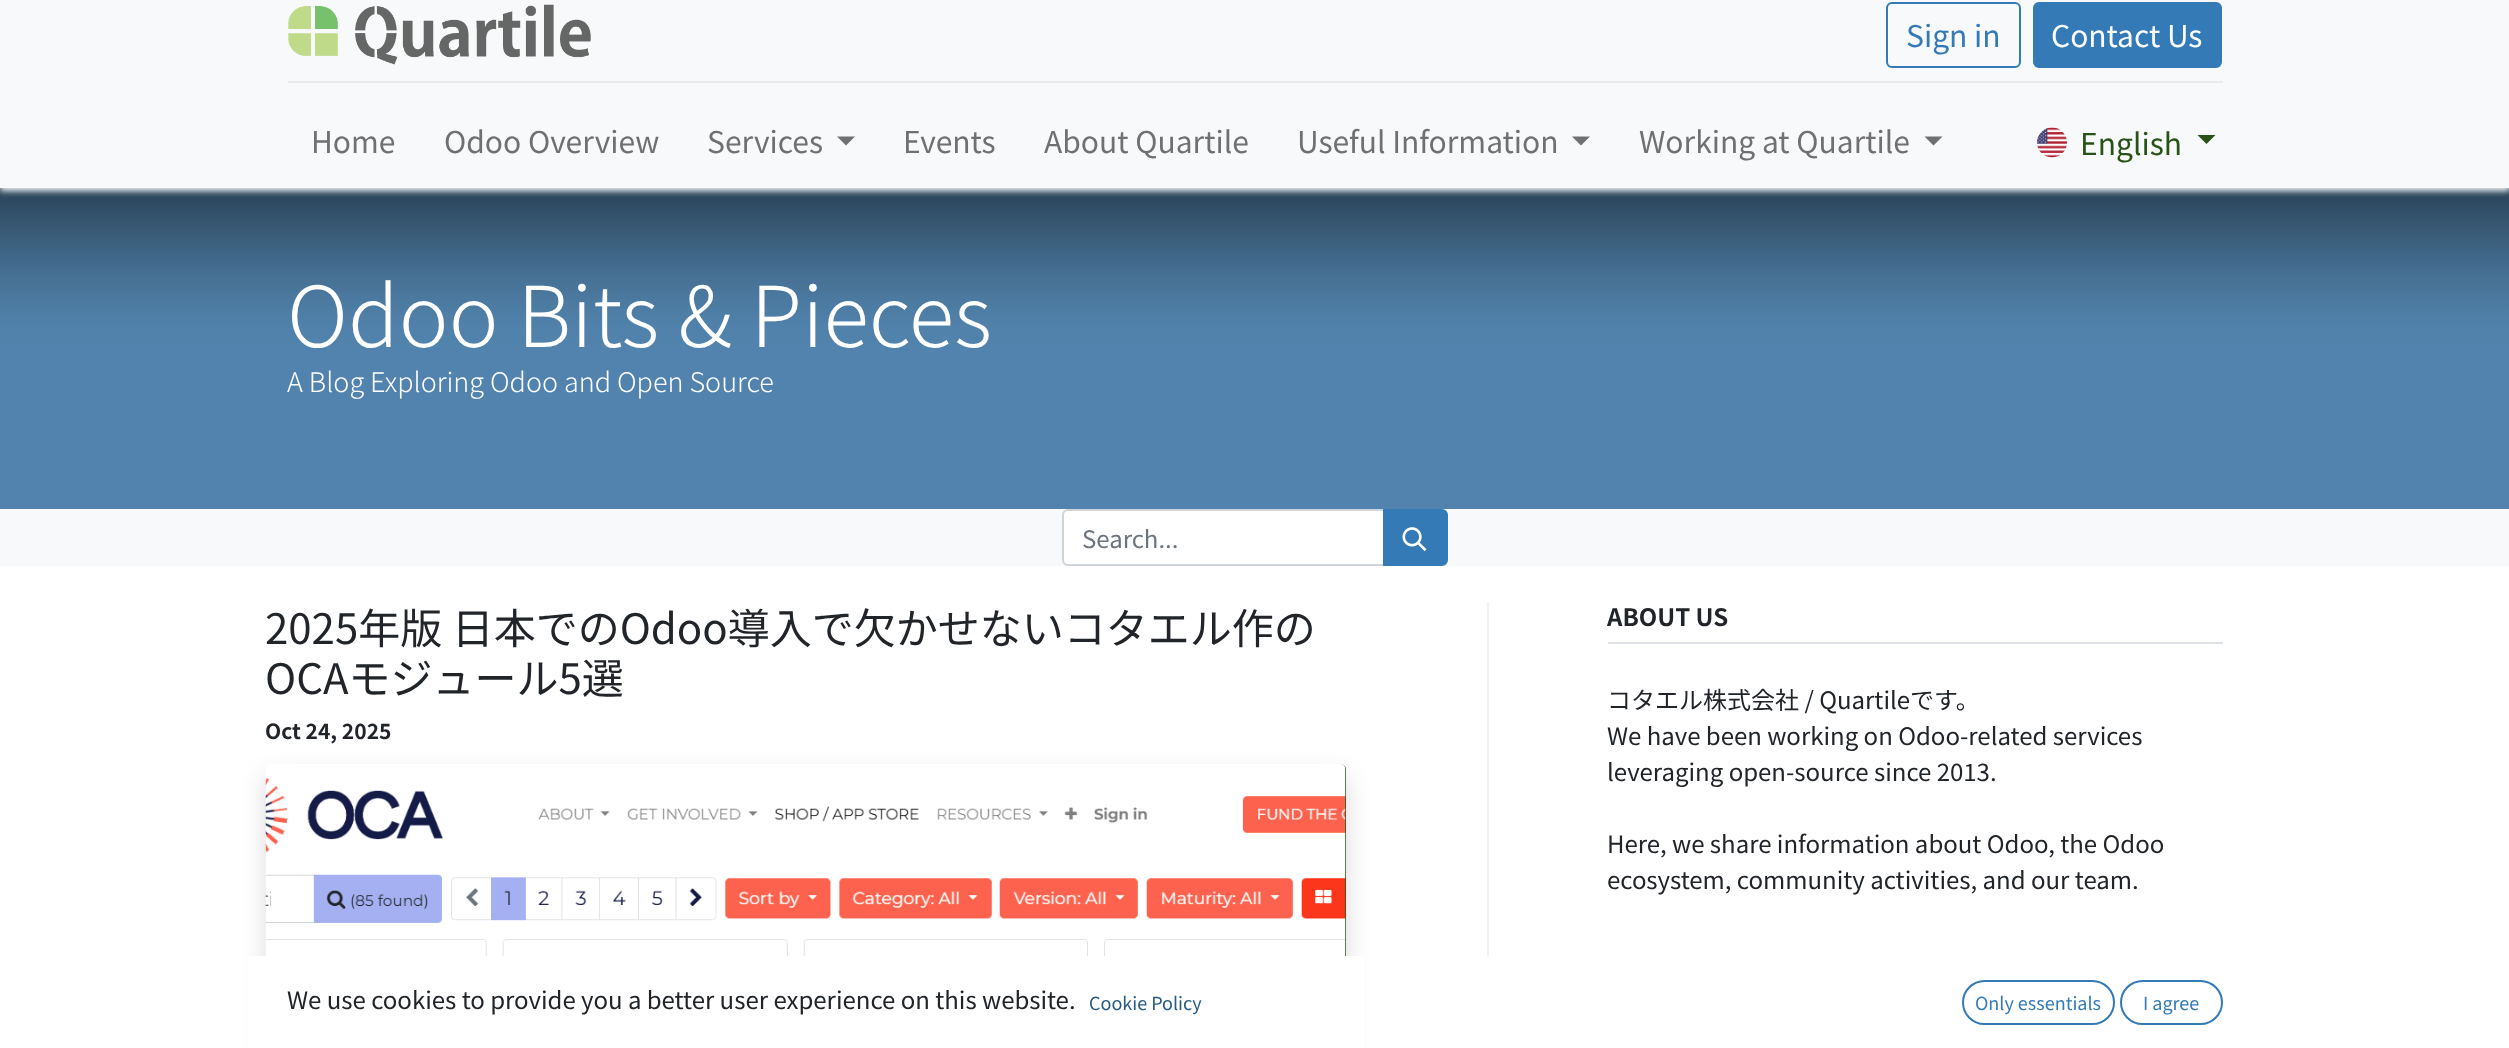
<!DOCTYPE html>
<meta charset="utf-8">
<style>body { margin: 0 } canvas { display: block }</style>
<canvas id="canvas" width="2509" height="1048"></canvas>
<img id="img1" src="img_01.png" hidden>
<img id="img2" src="img_02.png" hidden>
<img id="img3" src="img_03.png" hidden>
<img id="img4" src="img_04.png" hidden>
<script>
window.onload = function () {
	const canvas = document.getElementById("canvas");
	const ctx = canvas.getContext("2d");
	ctx.miterLimit = 4;
	ctx.fontKerning = "normal";
	function txt(s, x, y) {
		ctx.fillText(s, x, y);
	}
	function fill(x, y, w, h) {
		ctx.fillRect(x, y, w, h);
	}
	function img(id, x, y, w, h) {
		ctx.drawImage(document.getElementById(id), x, y, w, h);
	}
	let gradient;

	ctx.fillStyle = "#FFFFFF";
	fill(0, 0, 2509, 1048);
	gradient = ctx.createLinearGradient(1255, 187, 1255, 348);
	gradient.addColorStop(0, "#294257");
	gradient.addColorStop(0.19, "#34536D");
	gradient.addColorStop(0.34, "#3C607E");
	gradient.addColorStop(0.47, "#426A8C");
	gradient.addColorStop(0.56, "#477195");
	gradient.addColorStop(0.65, "#4A769C");
	gradient.addColorStop(0.73, "#4C7BA2");
	gradient.addColorStop(0.8, "#4F7EA6");
	gradient.addColorStop(0.86, "#5081AA");
	gradient.addColorStop(0.91, "#5182AB");
	gradient.addColorStop(0.95, "#5182AC");
	gradient.addColorStop(0.98, "#5283AD");
	gradient.addColorStop(1, "#5283AD");
	ctx.fillStyle = gradient;
	fill(0, 188, 2509, 160);
	ctx.fillStyle = "#F8F9FA";
	ctx.filter = "blur(3px)";
	ctx.beginPath();
	ctx.rect(0, 3, 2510, 188);
	ctx.fill();
	ctx.filter = "none";
	fill(0, 0, 2509, 188);
	img("img1", 288, 4, 303, 61);
	ctx.beginPath();
	ctx.roundRect(1887, 3, 133, 64, 5);
	ctx.strokeStyle = "#337AB7";
	ctx.lineWidth = 2;
	ctx.stroke();
	ctx.fillStyle = "#337AB7";
	ctx.beginPath();
	ctx.roundRect(2034, 3, 187, 64, 5);
	ctx.fill();
	ctx.stroke();
	ctx.fillStyle = "#E9ECEF";
	fill(288, 81, 1935, 2);
	ctx.fillStyle = "#707071";
	ctx.beginPath();
	ctx.moveTo(837, 136.5);
	ctx.lineTo(855, 136.5);
	ctx.lineTo(846, 145.5);
	ctx.closePath();
	ctx.fill();
	ctx.beginPath();
	ctx.moveTo(1572, 136.5);
	ctx.lineTo(1590, 136.5);
	ctx.lineTo(1581, 145.5);
	ctx.closePath();
	ctx.fill();
	ctx.beginPath();
	ctx.moveTo(1924.5, 136.5);
	ctx.lineTo(1942.5, 136.5);
	ctx.lineTo(1933.5, 145.5);
	ctx.closePath();
	ctx.fill();
	img("img2", 2037, 127, 30, 31);
	ctx.fillStyle = "#295218";
	ctx.beginPath();
	ctx.moveTo(2197.5, 135);
	ctx.lineTo(2215.5, 135);
	ctx.lineTo(2206.5, 144);
	ctx.closePath();
	ctx.fill();
	ctx.fillStyle = "#5183AE";
	fill(0, 348, 2509, 161);
	ctx.fillStyle = "#F8F9FA";
	fill(0, 509, 2509, 57);
	ctx.fillStyle = "#FFFFFF";
	ctx.beginPath();
	ctx.roundRect(1063, 510, 321, 55, [5, 0, 0, 5]);
	ctx.fill();
	ctx.strokeStyle = "#CED4DA";
	ctx.stroke();
	ctx.fillStyle = "#337AB7";
	ctx.beginPath();
	ctx.roundRect(1384, 510, 63, 55, [0, 5, 5, 0]);
	ctx.fill();
	ctx.strokeStyle = "#337AB7";
	ctx.stroke();
	img("img3", 1402, 527, 25, 25);
	ctx.fillStyle = "rgba(0, 0, 0, 0.15)";
	ctx.filter = "blur(12px)";
	ctx.beginPath();
	ctx.roundRect(266, 776, 1080, 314, 6);
	ctx.fill();
	ctx.filter = "none";
	ctx.fillStyle = "#295218";
	ctx.beginPath();
	ctx.moveTo(272, 764);
	ctx.lineTo(1340, 764);
	ctx.bezierCurveTo(1343.5, 764, 1346, 766.5, 1346, 770);
	ctx.lineTo(1346, 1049);
	ctx.lineTo(266, 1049);
	ctx.lineTo(266, 770);
	ctx.bezierCurveTo(266, 766.5, 268.5, 764, 272, 764);
	ctx.closePath();
	ctx.fill();
	img("img4", 265, 764, 1081, 192);
	ctx.fillStyle = "#EFF1F3";
	fill(1487, 602, 2, 354);
	ctx.fillStyle = "#DEE2E6";
	fill(1608, 642, 615, 2);
	ctx.fillStyle = "#FFFFFF";
	fill(248, 956, 1116, 92);
	ctx.beginPath();
	ctx.roundRect(1963, 981, 151, 43, 21.5);
	ctx.stroke();
	ctx.beginPath();
	ctx.roundRect(2121, 981, 101, 43, 21.5);
	ctx.stroke();
	ctx.font = "30px Noto Sans JP";
	ctx.fillStyle = "#337AB7";
	txt("Sign in", 1906, 47);
	ctx.fillStyle = "#FFFFFF";
	txt("Contact Us", 2051, 47);
	ctx.fillStyle = "#707071";
	txt("Home", 311, 153);
	txt("Odoo Overview", 444, 153);
	txt("Services", 707, 153);
	txt("Events", 903, 153);
	txt("About Quartile", 1044, 153);
	txt("Useful Information", 1297, 153);
	txt("Working at Quartile", 1639, 153);
	ctx.fillStyle = "#295218";
	txt("English", 2080, 155);
	ctx.font = "300 84px Noto Sans JP";
	ctx.fillStyle = "#FFFFFF";
	txt("Odoo Bits & Pieces", 287, 347);
	ctx.font = "300 27px Noto Sans JP";
	txt("A Blog Exploring Odoo and Open Source", 287, 392);
	ctx.font = "24px Noto Sans JP";
	ctx.fillStyle = "#6C757D";
	txt("Search...", 1082, 548);
	ctx.font = "42px Noto Sans JP";
	ctx.fillStyle = "#212529";
	txt("2025年版 日本でのOdoo導入で欠かせないコタエル作の", 265, 644);
	txt("OCAモジュール5選", 265, 694);
	ctx.font = "bold 21px Noto Sans JP";
	txt("Oct 24, 2025", 265, 739);
	ctx.font = "bold 24px Noto Sans JP";
	txt("ABOUT US", 1607, 626);
	ctx.font = "24px Noto Sans JP";
	txt("コタエル株式会社 / Quartileです。", 1607, 709);
	txt("We have been working on Odoo-related services", 1607, 745);
	txt("leveraging open-source since 2013.", 1607, 781);
	txt("Here, we share information about Odoo, the Odoo", 1607, 853);
	txt("ecosystem, community activities, and our team.", 1607, 889);
	txt("We use cookies to provide you a better user experience on this website.", 287, 1009);
	ctx.font = "18px Noto Sans JP";
	ctx.fillStyle = "#265A87";
	txt("Cookie Policy", 1089, 1010);
	ctx.fillStyle = "#337AB7";
	txt("Only essentials", 1975, 1010);
	txt("I agree", 2143, 1010);
};
</script>
